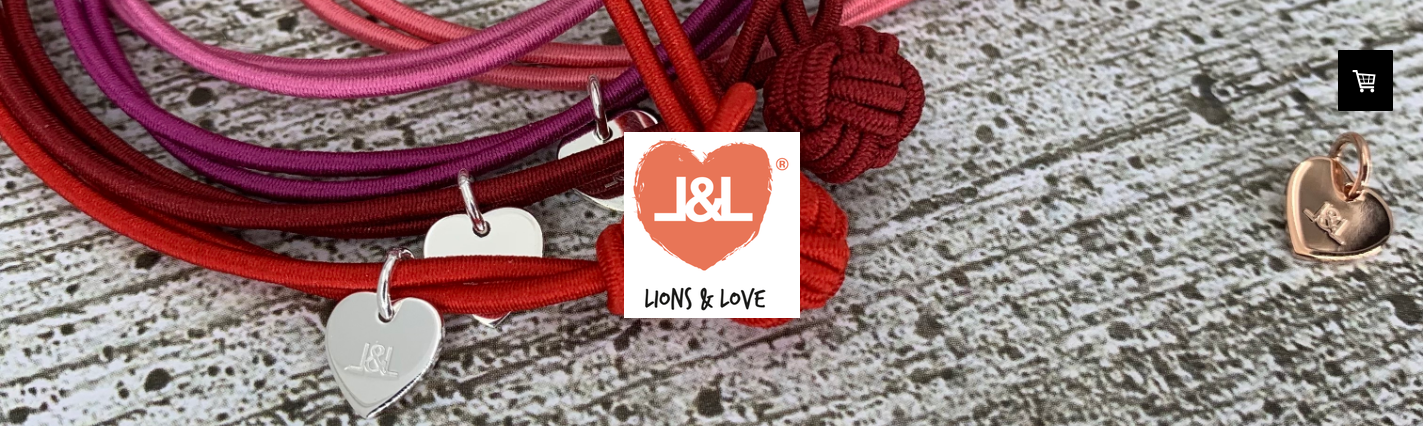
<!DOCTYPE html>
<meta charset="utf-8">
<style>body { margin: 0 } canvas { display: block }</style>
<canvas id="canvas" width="1423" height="426"></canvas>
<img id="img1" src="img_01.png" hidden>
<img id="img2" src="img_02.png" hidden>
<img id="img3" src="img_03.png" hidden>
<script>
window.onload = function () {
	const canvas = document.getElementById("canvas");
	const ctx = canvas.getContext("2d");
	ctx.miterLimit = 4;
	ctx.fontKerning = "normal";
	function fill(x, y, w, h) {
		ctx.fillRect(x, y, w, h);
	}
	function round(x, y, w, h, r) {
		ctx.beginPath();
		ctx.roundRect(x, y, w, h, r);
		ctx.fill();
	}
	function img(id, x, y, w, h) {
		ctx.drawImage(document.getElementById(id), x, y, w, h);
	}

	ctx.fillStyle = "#FFFFFF";
	fill(0, 0, 1423, 426);
	img("img1", 0, 0, 1423, 426);
	img("img2", 624, 132, 176, 186);
	ctx.fillStyle = "#000000";
	round(1338, 50, 55, 61, 1);
	img("img3", 1352, 70, 24, 23);
};
</script>
